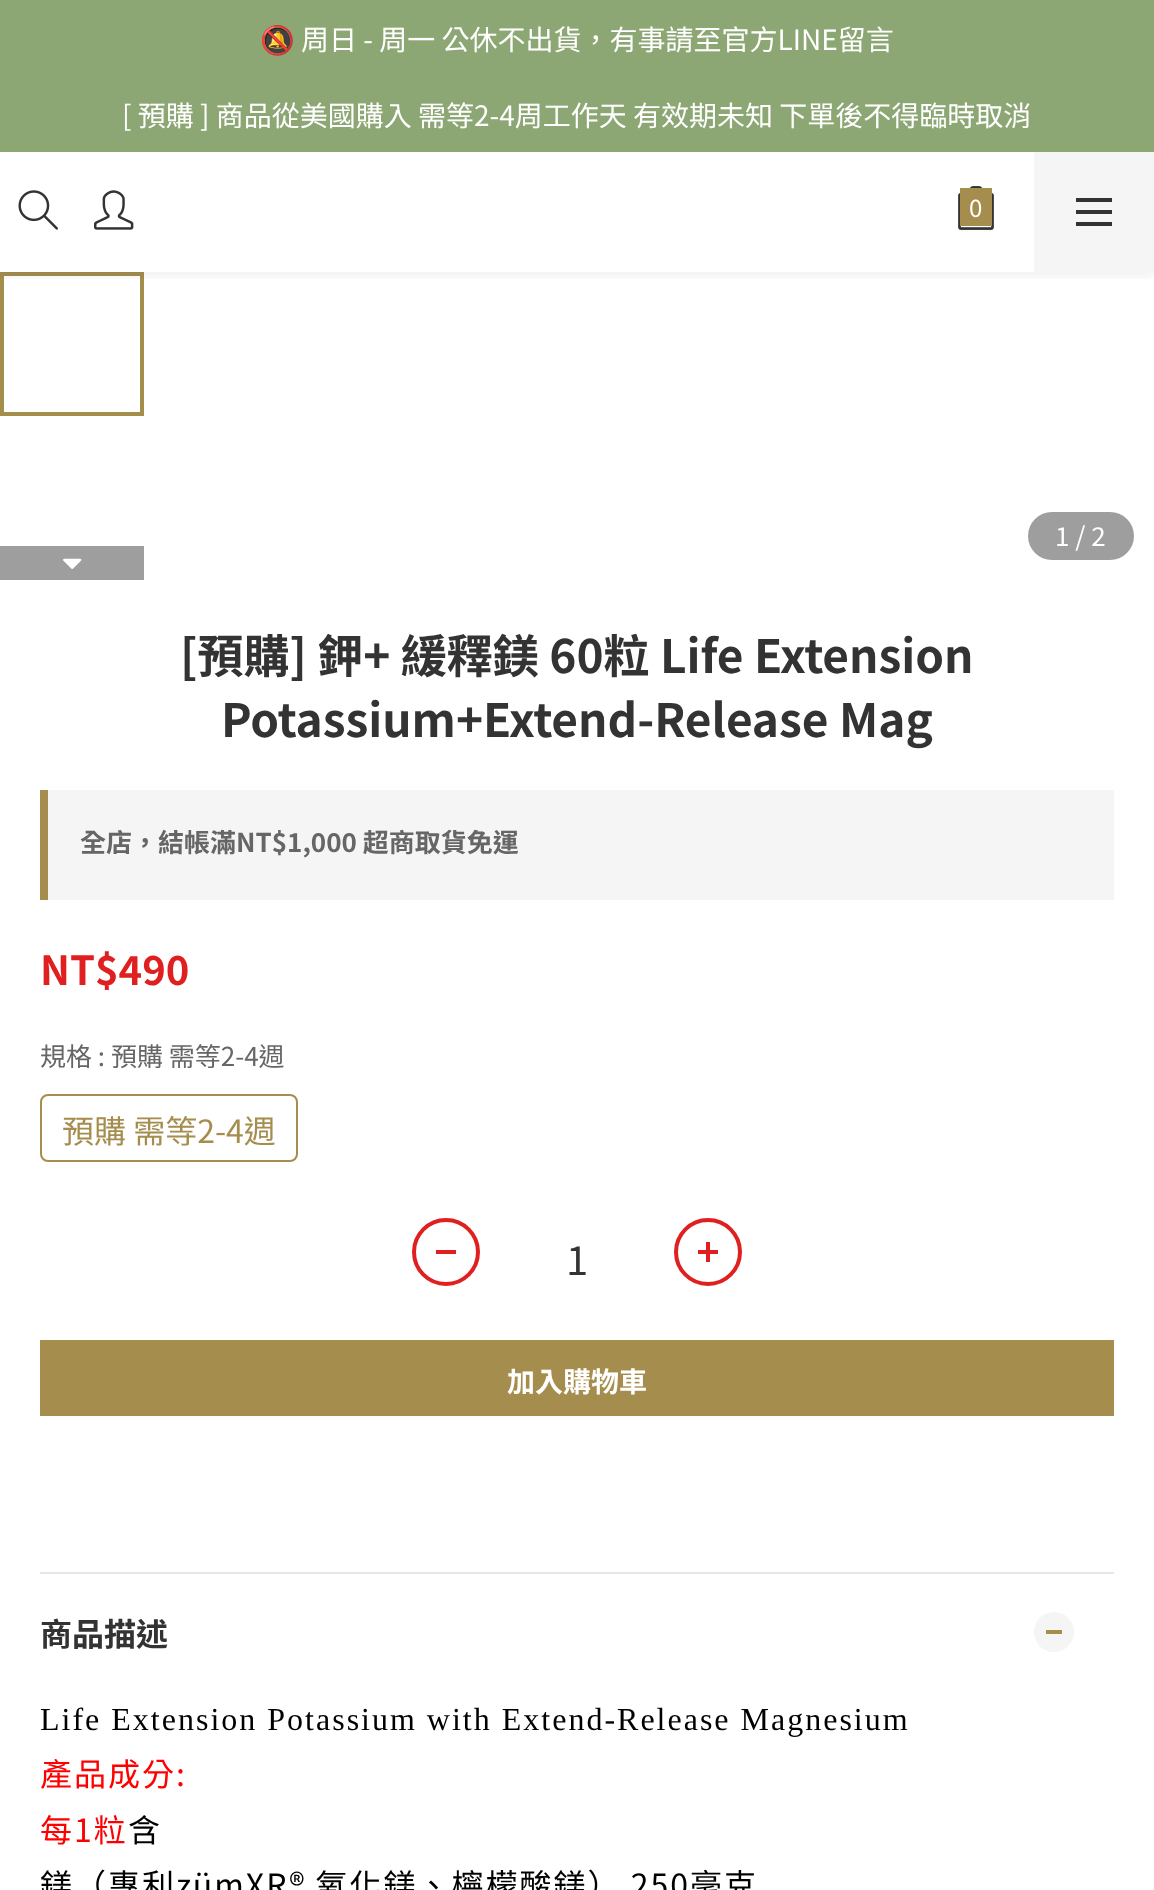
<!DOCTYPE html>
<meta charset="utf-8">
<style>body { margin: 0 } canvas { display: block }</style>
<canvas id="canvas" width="1154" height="1890"></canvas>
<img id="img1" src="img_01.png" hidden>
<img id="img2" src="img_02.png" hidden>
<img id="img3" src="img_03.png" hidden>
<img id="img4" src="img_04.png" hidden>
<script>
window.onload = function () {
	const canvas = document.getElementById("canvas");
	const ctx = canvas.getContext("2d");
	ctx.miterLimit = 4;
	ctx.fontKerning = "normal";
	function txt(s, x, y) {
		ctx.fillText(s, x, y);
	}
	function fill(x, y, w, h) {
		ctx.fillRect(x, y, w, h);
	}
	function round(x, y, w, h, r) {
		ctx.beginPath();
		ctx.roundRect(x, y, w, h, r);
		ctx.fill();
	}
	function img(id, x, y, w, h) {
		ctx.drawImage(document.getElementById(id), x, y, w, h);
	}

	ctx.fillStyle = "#FFFFFF";
	fill(0, 0, 1154, 1890);
	ctx.fillStyle = "#8CA674";
	fill(0, 0, 1154, 152);
	ctx.strokeStyle = "#A58D4E";
	ctx.lineWidth = 4;
	ctx.strokeRect(2, 274, 140, 140);
	ctx.save();
	ctx.beginPath();
	ctx.rect(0, 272, 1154, 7);
	ctx.clip();
	ctx.fillStyle = "rgba(0, 0, 0, 0.06)";
	ctx.filter = "blur(6px)";
	ctx.beginPath();
	ctx.rect(0, 156, 1154, 120);
	ctx.fill();
	ctx.filter = "none";
	ctx.restore();
	img("img1", 18, 190, 40, 40);
	img("img2", 94, 190, 40, 40);
	img("img3", 958, 186, 36, 44);
	ctx.fillStyle = "#A58D4E";
	fill(960, 188, 32, 38);
	ctx.fillStyle = "#F5F5F5";
	fill(1034, 152, 120, 120);
	ctx.fillStyle = "#333333";
	fill(1076, 210, 36, 4);
	fill(1076, 198, 36, 4);
	fill(1076, 222, 36, 4);
	ctx.fillStyle = "#9E9E9E";
	fill(0, 546, 144, 34);
	img("img4", 63, 558, 19, 11);
	round(1028, 512, 106, 48, 24);
	ctx.fillStyle = "#F5F5F5";
	fill(48, 790, 1066, 110);
	ctx.fillStyle = "#A58D4E";
	fill(40, 790, 8, 110);
	ctx.beginPath();
	ctx.roundRect(41, 1095, 256, 66, 7);
	ctx.lineWidth = 2;
	ctx.stroke();
	ctx.beginPath();
	ctx.arc(446, 1252, 32, 0, Math.PI * 2);
	ctx.strokeStyle = "#E02020";
	ctx.lineWidth = 4;
	ctx.stroke();
	ctx.fillStyle = "#E02020";
	fill(436, 1250, 20, 4);
	ctx.beginPath();
	ctx.arc(708, 1252, 32, 0, Math.PI * 2);
	ctx.stroke();
	fill(698, 1250, 20, 4);
	fill(706, 1242, 4, 20);
	ctx.fillStyle = "#A58D4E";
	fill(40, 1340, 1074, 76);
	ctx.fillStyle = "#E6E6E6";
	fill(40, 1572, 1074, 2);
	ctx.fillStyle = "#F5F5F5";
	ctx.beginPath();
	ctx.arc(1054, 1632, 20, 0, Math.PI * 2);
	ctx.fill();
	ctx.fillStyle = "#A58D4E";
	fill(1046, 1630, 16, 4);
	ctx.font = "28px Noto Color Emoji";
	ctx.fillStyle = "#FFFFFF";
	txt("🔕", 260, 50);
	ctx.font = "28px Noto Sans TC";
	txt("周日 - 周一 公休不出貨，有事請至官方LINE留言", 301, 50);
	txt("[ 預購 ] 商品從美國購入 需等2-4周工作天 有效期未知 下單後不得臨時取消", 122, 126);
	ctx.font = "24px Noto Sans TC";
	txt("0", 969, 217);
	ctx.font = "26px Noto Sans TC";
	txt("1 / 2", 1055, 546);
	ctx.font = "bold 46px Noto Sans TC";
	ctx.fillStyle = "#333333";
	txt("[預購] 鉀+ 緩釋鎂 60粒 Life Extension", 180, 673);
	txt("Potassium+Extend-Release Mag", 221, 737);
	ctx.font = "bold 26px Noto Sans TC";
	ctx.fillStyle = "#666666";
	txt("全店，結帳滿NT$1,000 超商取貨免運", 80, 852);
	ctx.font = "bold 40px Noto Sans TC";
	ctx.fillStyle = "#E02020";
	txt("NT$490", 40, 985);
	ctx.font = "26px Noto Sans TC";
	ctx.fillStyle = "#666666";
	txt("規格 : 預購 需等2-4週", 40, 1066);
	ctx.font = "32px Noto Sans TC";
	ctx.fillStyle = "#A58D4E";
	txt("預購 需等2-4週", 62, 1143);
	ctx.font = "40px Noto Sans TC";
	ctx.fillStyle = "#333333";
	txt("1", 566, 1275);
	ctx.font = "bold 28px Noto Sans TC";
	ctx.fillStyle = "#FFFFFF";
	txt("加入購物車", 507, 1392);
	ctx.font = "bold 32px Noto Sans TC";
	ctx.fillStyle = "#333333";
	txt("商品描述", 40, 1646);
	ctx.letterSpacing = "2px";
	ctx.font = "32px Liberation Serif";
	ctx.fillStyle = "#000000";
	txt("Life Extension Potassium with Extend-Release Magnesium", 40, 1730);
	ctx.font = "32px Noto Sans TC";
	ctx.fillStyle = "#FF0000";
	txt("產品成分:", 40, 1786);
	txt("每1粒", 40, 1842);
	ctx.fillStyle = "#000000";
	txt("含", 128, 1842);
	txt("鎂（專利zümXR® 氧化鎂、檸檬酸鎂） 250毫克", 40, 1897);
};
</script>
